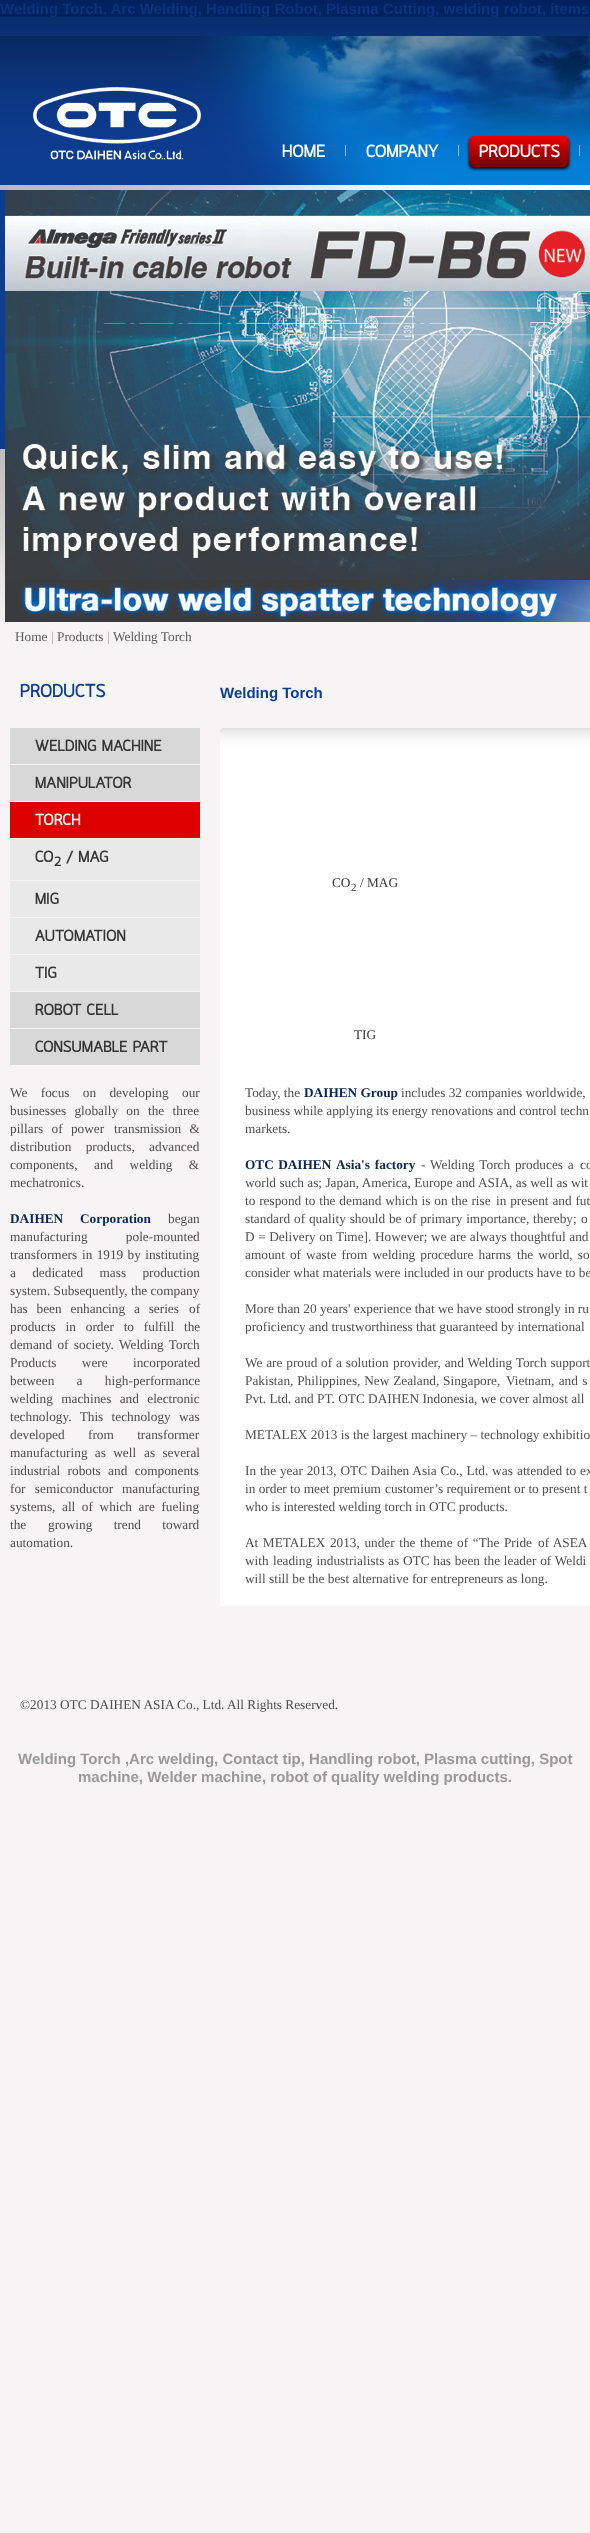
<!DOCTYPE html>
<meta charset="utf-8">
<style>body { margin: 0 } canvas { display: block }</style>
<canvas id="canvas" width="590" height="2533"></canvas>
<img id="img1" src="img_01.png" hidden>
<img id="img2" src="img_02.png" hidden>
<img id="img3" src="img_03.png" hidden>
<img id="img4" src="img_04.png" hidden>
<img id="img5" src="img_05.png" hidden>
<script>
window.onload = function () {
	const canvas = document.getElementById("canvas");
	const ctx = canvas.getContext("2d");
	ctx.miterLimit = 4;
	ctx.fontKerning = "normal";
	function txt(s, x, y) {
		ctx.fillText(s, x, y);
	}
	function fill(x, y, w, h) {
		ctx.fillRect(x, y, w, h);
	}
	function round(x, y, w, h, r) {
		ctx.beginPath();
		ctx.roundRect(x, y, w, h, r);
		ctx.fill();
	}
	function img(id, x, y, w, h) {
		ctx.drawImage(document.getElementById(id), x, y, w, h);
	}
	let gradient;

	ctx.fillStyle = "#F6F4F5";
	fill(0, 0, 590, 2533);
	img("img1", 0, 0, 590, 622);
	ctx.fillStyle = "#101D3D";
	fill(0, 15, 103, 1);
	img("img2", 0, 36, 590, 149);
	img("img3", 33, 87, 168, 73);
	ctx.fillStyle = "#94AED4";
	fill(345, 145, 1, 11);
	fill(458, 145, 1, 11);
	ctx.fillStyle = "#000000";
	ctx.filter = "blur(1.5px)";
	ctx.beginPath();
	ctx.roundRect(469, 138, 100, 31, 5);
	ctx.fill();
	ctx.filter = "none";
	gradient = ctx.createLinearGradient(519, 136, 519, 167);
	gradient.addColorStop(0, "#ED0000");
	gradient.addColorStop(1, "#720000");
	ctx.fillStyle = gradient;
	round(469, 136, 100, 31, 5);
	ctx.fillStyle = "#94AED4";
	fill(579, 145, 1, 11);
	img("img4", 0, 185, 590, 437);
	ctx.fillStyle = "#D8D8D8";
	fill(10, 728, 190, 36);
	fill(10, 765, 190, 36);
	ctx.fillStyle = "#DD0000";
	fill(10, 802, 190, 36);
	ctx.fillStyle = "#E9E9E9";
	fill(10, 839, 190, 41);
	fill(10, 881, 190, 36);
	fill(10, 918, 190, 36);
	fill(10, 955, 190, 36);
	ctx.fillStyle = "#D8D8D8";
	fill(10, 992, 190, 36);
	fill(10, 1029, 190, 36);
	img("img5", 220, 728, 370, 20);
	ctx.fillStyle = "#FFFFFF";
	fill(220, 748, 370, 858);
	ctx.font = "bold 15px Liberation Sans";
	ctx.fillStyle = "#0B357E";
	txt("Welding Torch, Arc Welding, Handling Robot, Plasma Cutting, welding robot, items", 0, 14);
	ctx.font = "bold 17.5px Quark";
	ctx.fillStyle = "#FFFFFF";
	txt("HOME", 282, 157);
	txt("COMPANY", 366, 157);
	txt("PRODUCTS", 479, 157);
	ctx.font = "13.3px Liberation Serif";
	ctx.fillStyle = "#5A5A5A";
	txt("Home", 15, 641);
	ctx.fillStyle = "#A2A2A2";
	txt("|", 51, 641);
	ctx.fillStyle = "#5A5A5A";
	txt("Products", 57, 641);
	ctx.fillStyle = "#A2A2A2";
	txt("|", 107, 641);
	ctx.fillStyle = "#5A5A5A";
	txt("Welding Torch", 113, 641);
	ctx.font = "bold 18.5px Quark";
	ctx.fillStyle = "#0D3D92";
	txt("PRODUCTS", 20, 697);
	ctx.font = "bold 16px Quark";
	ctx.fillStyle = "#353535";
	txt("WELDING MACHINE", 35, 751);
	txt("MANIPULATOR", 35, 788);
	ctx.fillStyle = "#FFFFFF";
	txt("TORCH", 35, 825);
	ctx.fillStyle = "#353535";
	txt("CO", 35, 862);
	ctx.font = "bold 13.3px Quark";
	txt("2", 54, 866);
	ctx.font = "bold 16px Quark";
	txt("/ MAG", 66, 862);
	txt("MIG", 35, 904);
	txt("AUTOMATION", 35, 941);
	txt("TIG", 35, 978);
	txt("ROBOT CELL", 35, 1015);
	txt("CONSUMABLE PART", 35, 1052);
	ctx.wordSpacing = "10px";
	ctx.font = "13.3px Liberation Serif";
	ctx.fillStyle = "#4F4F4F";
	txt("We focus on developing", 10, 1097);
	ctx.wordSpacing = "0px";
	txt("our", 182, 1097);
	ctx.wordSpacing = "5px";
	txt("businesses globally on the three", 10, 1115);
	txt("pillars of power", 10, 1133);
	txt("transmission &", 114, 1133);
	ctx.wordSpacing = "11px";
	txt("distribution products, advanced", 10, 1151);
	ctx.wordSpacing = "0px";
	txt("components,", 10, 1169);
	ctx.wordSpacing = "13px";
	txt("and welding &", 94, 1169);
	ctx.wordSpacing = "0px";
	txt("mechatronics.", 10, 1187);
	ctx.font = "bold 13.3px Liberation Serif";
	ctx.fillStyle = "#0A2657";
	txt("DAIHEN", 10, 1223);
	txt("Corporation", 80, 1223);
	ctx.font = "13.3px Liberation Serif";
	ctx.fillStyle = "#4F4F4F";
	txt("began", 168, 1223);
	ctx.wordSpacing = "35px";
	txt("manufacturing pole-mounted", 10, 1241);
	ctx.wordSpacing = "0px";
	txt("transformers", 10, 1259);
	ctx.wordSpacing = "1px";
	txt("in 1919 by instituting", 82, 1259);
	ctx.wordSpacing = "13px";
	txt("a dedicated mass production", 10, 1277);
	ctx.wordSpacing = "0px";
	txt("system. Subsequently, the company", 10, 1295);
	ctx.wordSpacing = "5.5px";
	txt("has been enhancing a series", 10, 1313);
	ctx.wordSpacing = "0px";
	txt("of", 189, 1313);
	ctx.wordSpacing = "6.5px";
	txt("products in order to fulfill the", 10, 1331);
	ctx.wordSpacing = "2px";
	txt("demand of society.", 10, 1349);
	txt("Welding Torch", 119, 1349);
	ctx.wordSpacing = "22px";
	txt("Products were incorporated", 10, 1367);
	ctx.wordSpacing = "19px";
	txt("between a high-performance", 10, 1385);
	ctx.wordSpacing = "5px";
	txt("welding machines and electronic", 10, 1403);
	txt("technology. This technology", 10, 1421);
	ctx.wordSpacing = "0px";
	txt("was", 179, 1421);
	ctx.wordSpacing = "20px";
	txt("developed from transformer", 10, 1439);
	ctx.wordSpacing = "4px";
	txt("manufacturing as well", 10, 1457);
	txt("as several", 144, 1457);
	txt("industrial robots and components", 10, 1475);
	ctx.wordSpacing = "6px";
	txt("for semiconductor", 10, 1493);
	ctx.wordSpacing = "0px";
	txt("manufacturing", 122, 1493);
	ctx.wordSpacing = "3.25px";
	txt("systems, all of which are fueling", 10, 1511);
	ctx.wordSpacing = "0px";
	txt("the", 10, 1529);
	ctx.wordSpacing = "18px";
	txt("growing trend toward", 48, 1529);
	ctx.wordSpacing = "0px";
	txt("automation.", 10, 1547);
	ctx.font = "bold 15px Liberation Sans";
	ctx.fillStyle = "#0D3D92";
	txt("Welding Torch", 220, 698);
	ctx.font = "13.3px Liberation Serif";
	ctx.fillStyle = "#353535";
	txt("CO", 332, 887);
	ctx.font = "11px Liberation Serif";
	txt("2", 351, 891);
	ctx.font = "13.3px Liberation Serif";
	txt("/ MAG", 360, 887);
	txt("TIG", 354, 1039);
	ctx.fillStyle = "#4F4F4F";
	txt("Today, the", 245, 1097);
	ctx.font = "bold 13.3px Liberation Serif";
	ctx.fillStyle = "#0A2657";
	txt("DAIHEN Group", 304, 1097);
	ctx.font = "13.3px Liberation Serif";
	ctx.fillStyle = "#4F4F4F";
	txt("includes 32 companies worldwide,", 401, 1097);
	txt("business while applying its energy renovations and control techn", 245, 1115);
	txt("markets.", 245, 1133);
	ctx.wordSpacing = "1px";
	ctx.font = "bold 13.3px Liberation Serif";
	ctx.fillStyle = "#0A2657";
	txt("OTC DAIHEN", 245, 1169);
	ctx.wordSpacing = "1.5px";
	txt("Asia's factory", 336, 1169);
	ctx.font = "13.3px Liberation Serif";
	ctx.fillStyle = "#4F4F4F";
	txt("- Welding Torch produces a", 421, 1169);
	ctx.wordSpacing = "2px";
	txt("co", 580, 1169);
	ctx.wordSpacing = "0.1px";
	txt("world such as; Japan, America, Europe and ASIA, as well as wit", 245, 1187);
	ctx.wordSpacing = "0.5px";
	txt("to respond to the demand which is on the rise", 245, 1205);
	txt("in present and fut", 496, 1205);
	ctx.wordSpacing = "0px";
	txt("standard", 245, 1223);
	ctx.wordSpacing = "0.5px";
	txt("of quality should be of primary importance, thereby;", 294, 1223);
	txt("o", 581, 1223);
	ctx.wordSpacing = "0.25px";
	txt("D = Delivery on Time]. However; we are always thoughtful and", 245, 1241);
	ctx.wordSpacing = "1.75px";
	txt("amount of waste from welding procedure harms", 245, 1259);
	txt("the world, so", 517, 1259);
	ctx.wordSpacing = "0px";
	txt("consider what materials were included in our products have to be", 245, 1277);
	txt("More than 20 years' experience that we have stood strongly in ru", 245, 1313);
	txt("proficiency and trustworthiness that guaranteed by international", 245, 1331);
	ctx.wordSpacing = "0.5px";
	txt("We are proud of a solution", 245, 1367);
	txt("provider, and Welding Torch support", 393, 1367);
	txt("Pakistan, Philippines, New Zealand, Singapore,", 245, 1385);
	ctx.wordSpacing = "1px";
	txt("Vietnam, and s", 506, 1385);
	ctx.wordSpacing = "0px";
	txt("Pvt. Ltd. and PT. OTC DAIHEN Indonesia, we cover almost all", 245, 1403);
	txt("METALEX 2013 is the largest machinery – technology exhibitio", 245, 1439);
	ctx.wordSpacing = "0.5px";
	txt("In the year 2013, OTC Daihen Asia Co., Ltd. was", 245, 1475);
	txt("attended to ex", 517, 1475);
	ctx.wordSpacing = "0px";
	txt("in order to meet premium", 245, 1493);
	txt("customer’s requirement or to present t", 385, 1493);
	txt("who is interested welding torch in OTC products.", 245, 1511);
	ctx.wordSpacing = "1.25px";
	txt("At METALEX 2013, under the theme of “The Pride", 245, 1547);
	ctx.wordSpacing = "1px";
	txt("of ASEA", 538, 1547);
	txt("with leading industrialists", 245, 1565);
	ctx.wordSpacing = "0.5px";
	txt("as OTC has been the leader of Weldi", 388, 1565);
	ctx.wordSpacing = "0px";
	txt("will still be the best alternative for entrepreneurs as long.", 245, 1583);
	txt("©2013 OTC DAIHEN ASIA Co., Ltd. All Rights Reserved.", 20, 1709);
	ctx.font = "bold 15px Liberation Sans";
	ctx.fillStyle = "#999999";
	txt("Welding Torch ,Arc welding, Contact tip, Handling robot, Plasma cutting, Spot", 18, 1764);
	txt("machine, Welder machine, robot of quality welding products.", 78, 1782);
};
</script>
